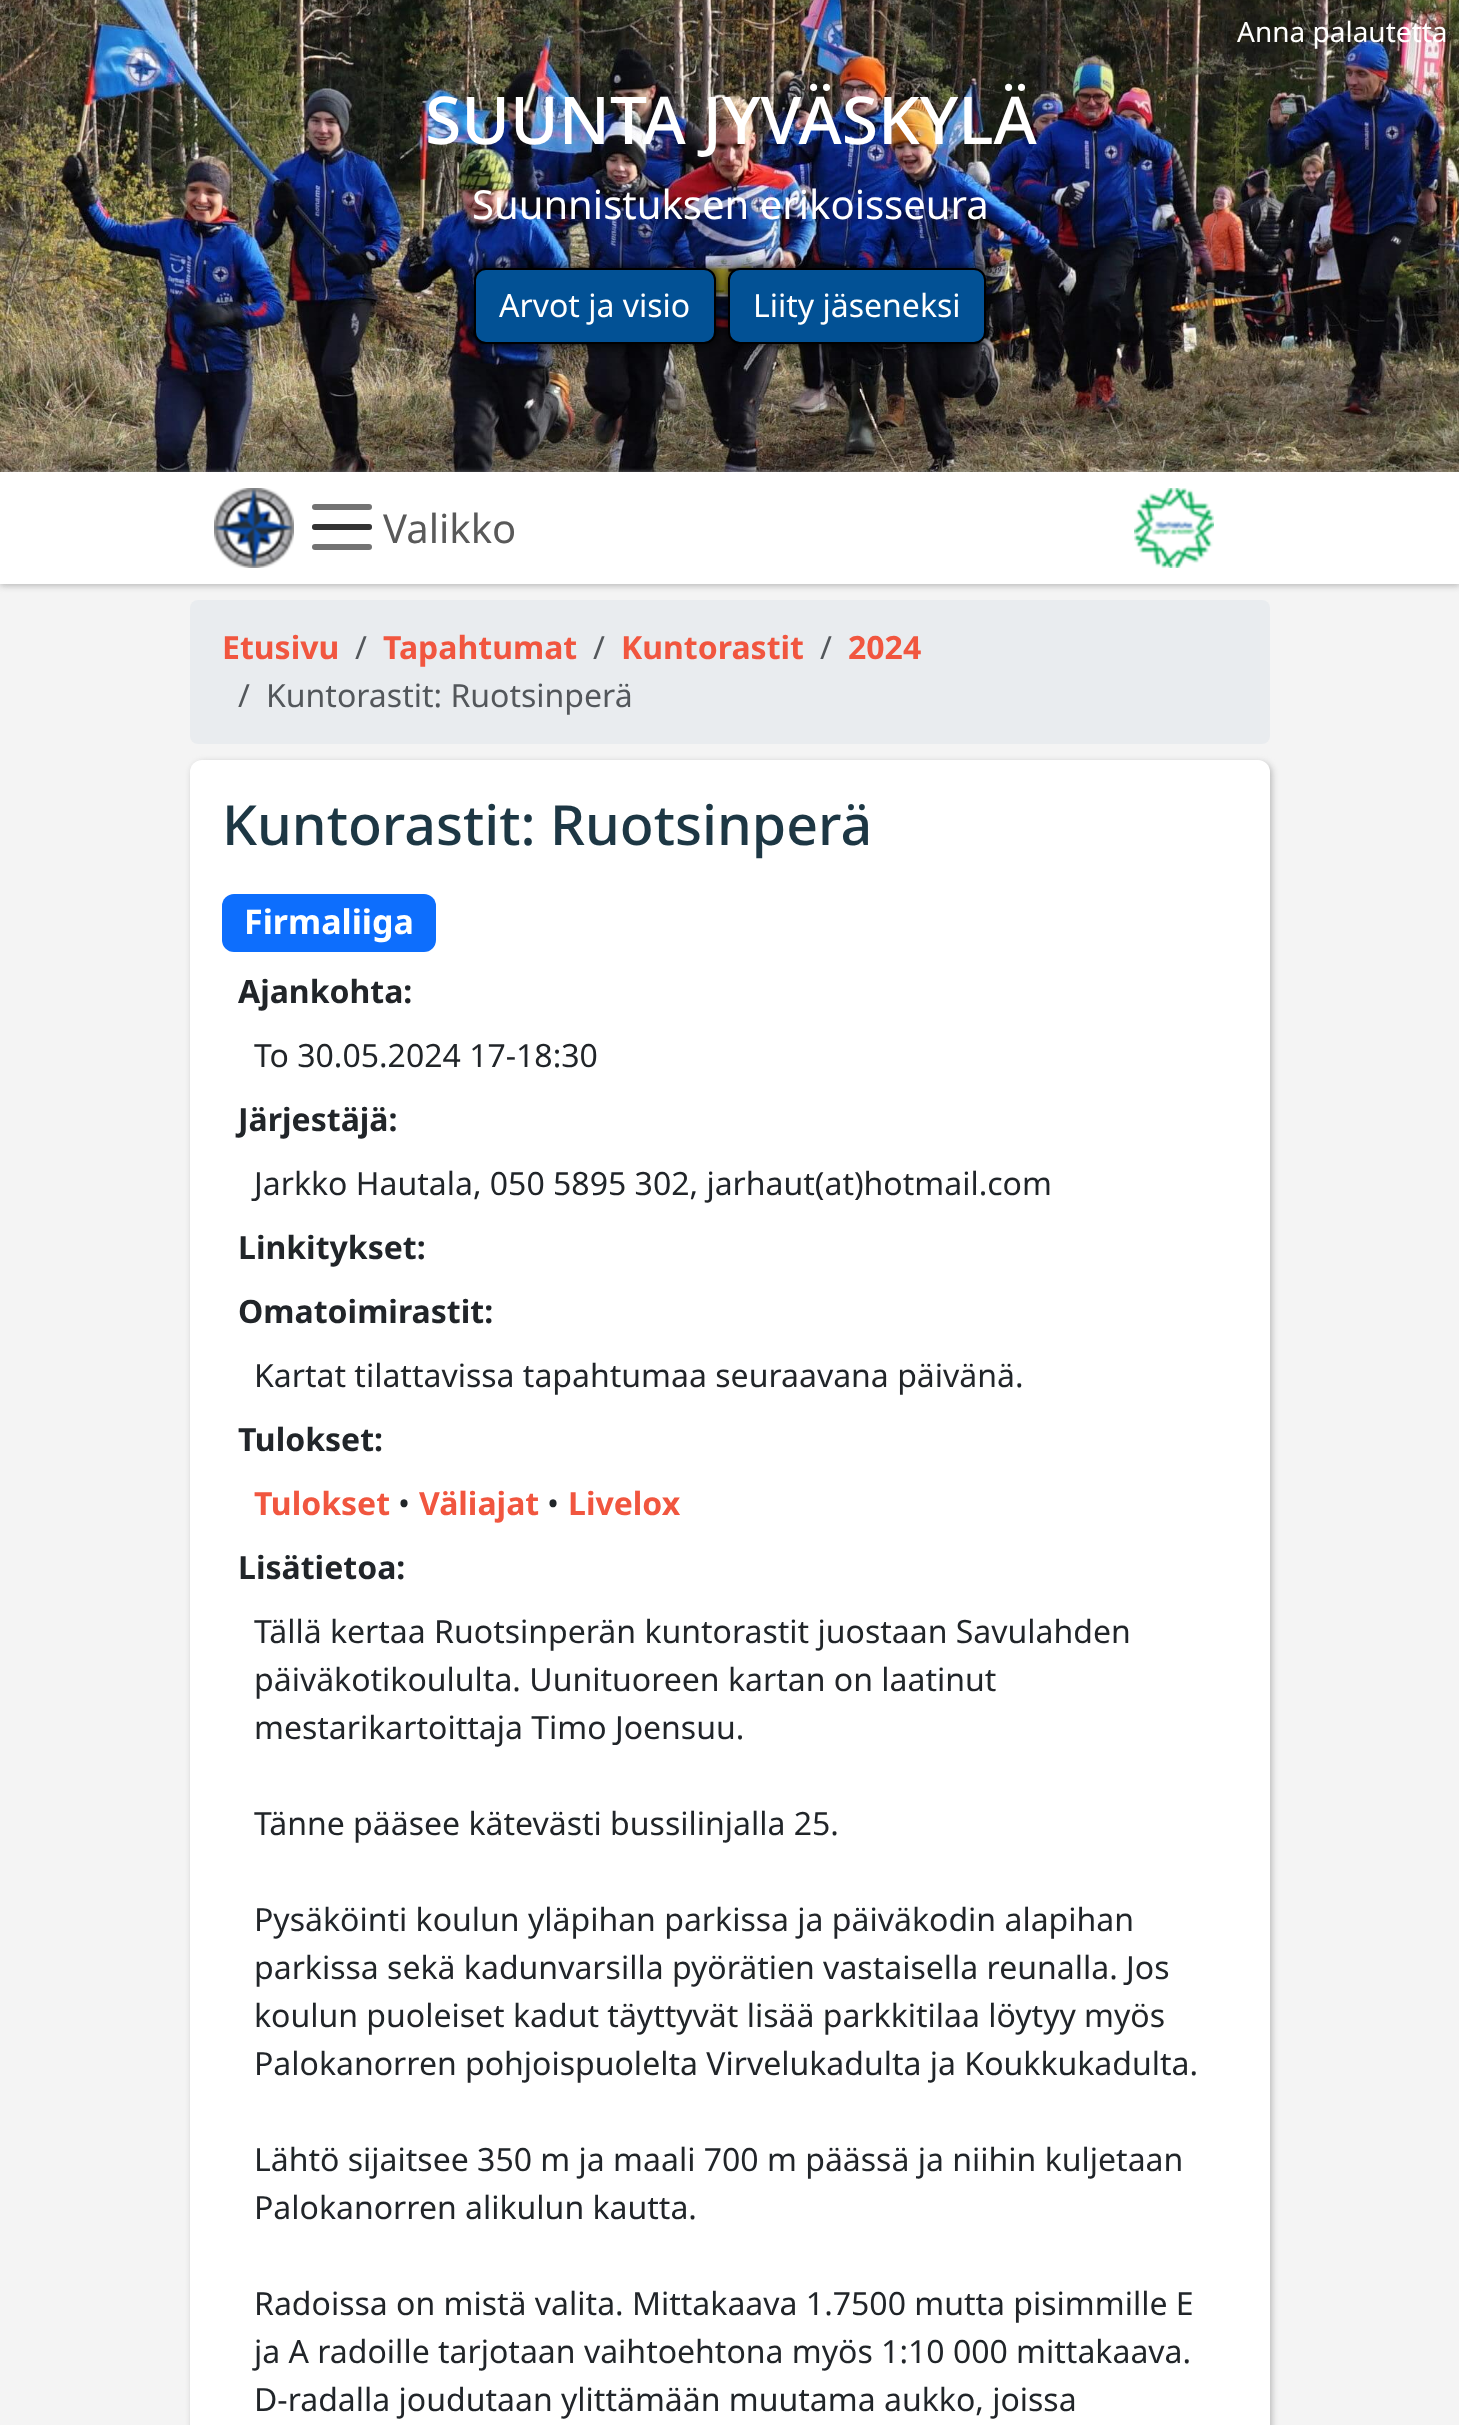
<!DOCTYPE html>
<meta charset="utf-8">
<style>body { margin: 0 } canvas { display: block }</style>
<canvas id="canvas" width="1459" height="2425"></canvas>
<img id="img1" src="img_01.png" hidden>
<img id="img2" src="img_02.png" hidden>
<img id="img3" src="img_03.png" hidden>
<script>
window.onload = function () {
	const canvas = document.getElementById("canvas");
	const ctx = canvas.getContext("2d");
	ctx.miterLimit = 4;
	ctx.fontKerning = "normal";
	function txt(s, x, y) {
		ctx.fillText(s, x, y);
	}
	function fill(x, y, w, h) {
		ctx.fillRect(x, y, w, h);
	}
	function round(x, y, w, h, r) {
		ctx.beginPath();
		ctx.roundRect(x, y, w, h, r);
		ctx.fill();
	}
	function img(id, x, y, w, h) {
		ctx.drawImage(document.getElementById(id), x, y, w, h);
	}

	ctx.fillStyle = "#F4F4F4";
	fill(0, 0, 1459, 2425);
	img("img1", 0, 0, 1459, 472);
	ctx.fillStyle = "#000000";
	ctx.filter = "blur(6px)";
	ctx.beginPath();
	ctx.roundRect(474, 268, 242, 76, 12);
	ctx.fill();
	ctx.filter = "none";
	ctx.fillStyle = "#025195";
	ctx.beginPath();
	ctx.roundRect(475, 269, 240, 74, 11);
	ctx.fill();
	ctx.strokeStyle = "#000000";
	ctx.lineWidth = 2;
	ctx.stroke();
	ctx.fillStyle = "#000000";
	ctx.filter = "blur(6px)";
	ctx.beginPath();
	ctx.roundRect(728, 268, 258, 76, 12);
	ctx.fill();
	ctx.filter = "none";
	ctx.fillStyle = "#025195";
	ctx.beginPath();
	ctx.roundRect(729, 269, 256, 74, 11);
	ctx.fill();
	ctx.stroke();
	ctx.fillStyle = "#BABABA";
	ctx.filter = "blur(3px)";
	ctx.beginPath();
	ctx.rect(0, 474, 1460, 112);
	ctx.fill();
	ctx.filter = "none";
	ctx.fillStyle = "#FFFFFF";
	fill(0, 472, 1459, 112);
	img("img2", 214, 488, 80, 80);
	ctx.fillStyle = "#737373";
	round(312, 504, 60, 6, 3);
	round(312, 524, 60, 6, 3);
	ctx.fillStyle = "rgba(0, 0, 0, 0.55)";
	round(312, 524, 60, 6, 3);
	ctx.fillStyle = "#737373";
	round(312, 544, 60, 6, 3);
	img("img3", 1134, 488, 80, 80);
	ctx.fillStyle = "#E9ECEF";
	round(190, 600, 1080, 144, 8);
	ctx.fillStyle = "#BABABA";
	ctx.filter = "blur(3px)";
	ctx.beginPath();
	ctx.roundRect(192, 762, 1080, 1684, 12);
	ctx.fill();
	ctx.filter = "none";
	ctx.fillStyle = "#FFFFFF";
	round(190, 760, 1080, 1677, 12);
	ctx.fillStyle = "#0D6EFD";
	round(222, 894, 214, 58, 12);
	ctx.font = "28px Noto Sans";
	ctx.fillStyle = "#FFFFFF";
	txt("Anna palautetta", 1237, 42);
	ctx.font = "500 66px Noto Sans";
	txt("SUUNTA JYVÄSKYLÄ", 425, 144);
	ctx.font = "40px Noto Sans";
	txt("Suunnistuksen erikoisseura", 472, 219);
	ctx.font = "32px Noto Sans";
	txt("Arvot ja visio", 499, 317);
	txt("Liity jäseneksi", 753, 317);
	ctx.font = "40px Noto Sans";
	ctx.fillStyle = "#595959";
	txt("Valikko", 383, 543);
	ctx.font = "bold 32px Noto Sans";
	ctx.fillStyle = "#F1563F";
	txt("Etusivu", 222, 659);
	ctx.font = "32px Noto Sans";
	ctx.fillStyle = "#53575B";
	txt("/", 355, 659);
	ctx.font = "bold 32px Noto Sans";
	ctx.fillStyle = "#F1563F";
	txt("Tapahtumat", 383, 659);
	ctx.font = "32px Noto Sans";
	ctx.fillStyle = "#53575B";
	txt("/", 593, 659);
	ctx.font = "bold 32px Noto Sans";
	ctx.fillStyle = "#F1563F";
	txt("Kuntorastit", 621, 659);
	ctx.font = "32px Noto Sans";
	ctx.fillStyle = "#53575B";
	txt("/", 820, 659);
	ctx.font = "bold 32px Noto Sans";
	ctx.fillStyle = "#F1563F";
	txt("2024", 848, 659);
	ctx.font = "32px Noto Sans";
	ctx.fillStyle = "#53575B";
	txt("/", 238, 707);
	txt("Kuntorastit: Ruotsinperä", 266, 707);
	ctx.font = "500 55.5px Noto Sans";
	ctx.fillStyle = "#1D3744";
	txt("Kuntorastit: Ruotsinperä", 222, 845);
	ctx.font = "bold 34px Noto Sans";
	ctx.fillStyle = "#FFFFFF";
	txt("Firmaliiga", 244, 934);
	ctx.font = "bold 32px Noto Sans";
	ctx.fillStyle = "#212529";
	txt("Ajankohta:", 238, 1003);
	ctx.font = "32px Noto Sans";
	txt("To 30.05.2024 17-18:30", 254, 1067);
	ctx.font = "bold 32px Noto Sans";
	txt("Järjestäjä:", 238, 1131);
	ctx.font = "32px Noto Sans";
	txt("Jarkko Hautala, 050 5895 302, jarhaut(at)hotmail.com", 254, 1195);
	ctx.font = "bold 32px Noto Sans";
	txt("Linkitykset:", 238, 1259);
	txt("Omatoimirastit:", 238, 1323);
	ctx.font = "32px Noto Sans";
	txt("Kartat tilattavissa tapahtumaa seuraavana päivänä.", 254, 1387);
	ctx.font = "bold 32px Noto Sans";
	txt("Tulokset:", 238, 1451);
	ctx.fillStyle = "#F1563F";
	txt("Tulokset", 254, 1515);
	ctx.font = "32px Noto Sans";
	ctx.fillStyle = "#212529";
	txt("•", 398, 1515);
	ctx.font = "bold 32px Noto Sans";
	ctx.fillStyle = "#F1563F";
	txt("Väliajat", 419, 1515);
	ctx.font = "32px Noto Sans";
	ctx.fillStyle = "#212529";
	txt("•", 547, 1515);
	ctx.font = "bold 32px Noto Sans";
	ctx.fillStyle = "#F1563F";
	txt("Livelox", 568, 1515);
	ctx.fillStyle = "#212529";
	txt("Lisätietoa:", 238, 1579);
	ctx.font = "32px Noto Sans";
	txt("Tällä kertaa Ruotsinperän kuntorastit juostaan Savulahden", 254, 1643);
	txt("päiväkotikoululta. Uunituoreen kartan on laatinut", 254, 1691);
	txt("mestarikartoittaja Timo Joensuu.", 254, 1739);
	txt("Tänne pääsee kätevästi bussilinjalla 25.", 254, 1835);
	txt("Pysäköinti koulun yläpihan parkissa ja päiväkodin alapihan", 254, 1931);
	txt("parkissa sekä kadunvarsilla pyörätien vastaisella reunalla. Jos", 254, 1979);
	txt("koulun puoleiset kadut täyttyvät lisää parkkitilaa löytyy myös", 254, 2027);
	txt("Palokanorren pohjoispuolelta Virvelukadulta ja Koukkukadulta.", 254, 2075);
	txt("Lähtö sijaitsee 350 m ja maali 700 m päässä ja niihin kuljetaan", 254, 2171);
	txt("Palokanorren alikulun kautta.", 254, 2219);
	txt("Radoissa on mistä valita. Mittakaava 1.7500 mutta pisimmille E", 254, 2315);
	txt("ja A radoille tarjotaan vaihtoehtona myös 1:10 000 mittakaava.", 254, 2363);
	txt("D-radalla joudutaan ylittämään muutama aukko, joissa", 254, 2411);
};
</script>
